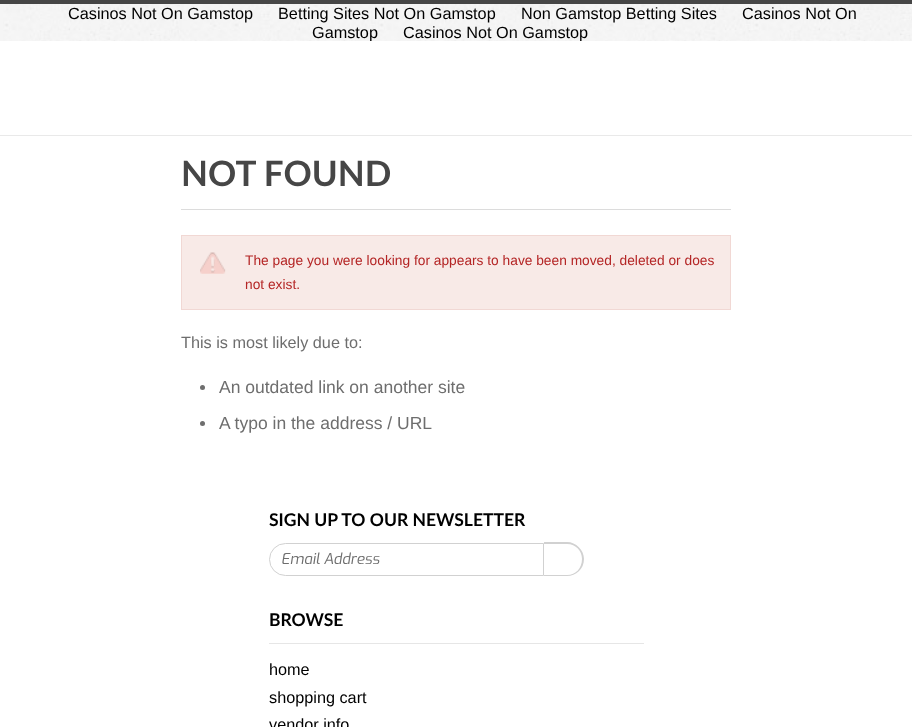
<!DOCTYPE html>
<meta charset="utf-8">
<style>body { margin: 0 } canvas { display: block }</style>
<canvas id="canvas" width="912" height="727"></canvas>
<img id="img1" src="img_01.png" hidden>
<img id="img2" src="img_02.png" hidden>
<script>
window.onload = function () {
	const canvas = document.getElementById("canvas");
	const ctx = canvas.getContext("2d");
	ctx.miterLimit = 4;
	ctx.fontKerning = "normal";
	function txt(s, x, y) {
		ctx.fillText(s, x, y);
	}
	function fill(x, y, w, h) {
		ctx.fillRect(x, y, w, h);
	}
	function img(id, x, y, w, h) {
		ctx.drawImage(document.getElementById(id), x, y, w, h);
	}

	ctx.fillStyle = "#F5F5F5";
	fill(0, 0, 912, 727);
	img("img1", 3, 4, 909, 37);
	ctx.fillStyle = "#464646";
	fill(0, 0, 912, 4);
	ctx.font = "16.25px Liberation Sans";
	ctx.fillStyle = "#000000";
	txt("Casinos Not On Gamstop", 68, 19);
	txt("Betting Sites Not On Gamstop", 278, 19);
	txt("Non Gamstop Betting Sites", 521, 19);
	txt("Casinos Not On", 742, 19);
	txt("Gamstop", 312, 38);
	txt("Casinos Not On Gamstop", 403, 38);
	ctx.fillStyle = "#FFFFFF";
	fill(0, 41, 912, 686);
	ctx.fillStyle = "#E9E9E9";
	fill(0, 135, 912, 1);
	ctx.fillStyle = "#DCDCDC";
	fill(181, 209, 550, 1);
	ctx.font = "bold 35px Lato";
	ctx.fillStyle = "#464646";
	txt("NOT FOUND", 181, 186);
	ctx.fillStyle = "#F8EAE7";
	fill(182, 236, 548, 73);
	img("img2", 200, 252, 26, 22);
	ctx.strokeStyle = "#F1D8D4";
	ctx.strokeRect(181.5, 235.5, 549, 74);
	ctx.font = "13.75px Liberation Sans";
	ctx.fillStyle = "#B42525";
	txt("The page you were looking for appears to have been moved, deleted or does", 245, 265);
	txt("not exist.", 245, 289);
	ctx.font = "16.25px Liberation Sans";
	ctx.fillStyle = "#6E6E6E";
	txt("This is most likely due to:", 181, 348);
	ctx.beginPath();
	ctx.arc(202.5, 387.5, 2.5, 0, Math.PI * 2);
	ctx.fill();
	ctx.font = "17.5px Liberation Sans";
	txt("An outdated link on another site", 219, 393);
	ctx.beginPath();
	ctx.arc(202.5, 423.5, 2.5, 0, Math.PI * 2);
	ctx.fill();
	txt("A typo in the address / URL", 219, 429);
	ctx.font = "bold 17.5px Lato";
	ctx.fillStyle = "#000000";
	txt("SIGN UP TO OUR NEWSLETTER", 269, 526);
	ctx.beginPath();
	ctx.roundRect(269.5, 543.5, 274, 32, [16, 0, 0, 16]);
	ctx.strokeStyle = "#D1D1D1";
	ctx.stroke();
	ctx.font = "italic 15px Exo";
	ctx.fillStyle = "#6E6E6E";
	txt("Email Address", 281, 564);
	ctx.fillStyle = "#D1D1D1";
	ctx.beginPath();
	ctx.moveTo(544, 542);
	ctx.lineTo(567, 542);
	ctx.bezierCurveTo(576, 542, 584, 550, 584, 559);
	ctx.bezierCurveTo(584, 569, 576, 576, 567, 576);
	ctx.lineTo(544, 576);
	ctx.closePath();
	ctx.moveTo(544, 544);
	ctx.lineTo(567, 544);
	ctx.bezierCurveTo(576, 544, 582, 551, 582, 559);
	ctx.bezierCurveTo(582, 568, 576, 575, 567, 575);
	ctx.lineTo(544, 575);
	ctx.closePath();
	ctx.fill("evenodd");
	ctx.fillStyle = "#E6E6E6";
	fill(269, 643, 375, 1);
	ctx.font = "bold 17.5px Lato";
	ctx.fillStyle = "#000000";
	txt("BROWSE", 269, 626);
	ctx.font = "16.25px Liberation Sans";
	txt("home", 269, 675);
	txt("shopping cart", 269, 703);
	txt("vendor info", 269, 730);
};
</script>
